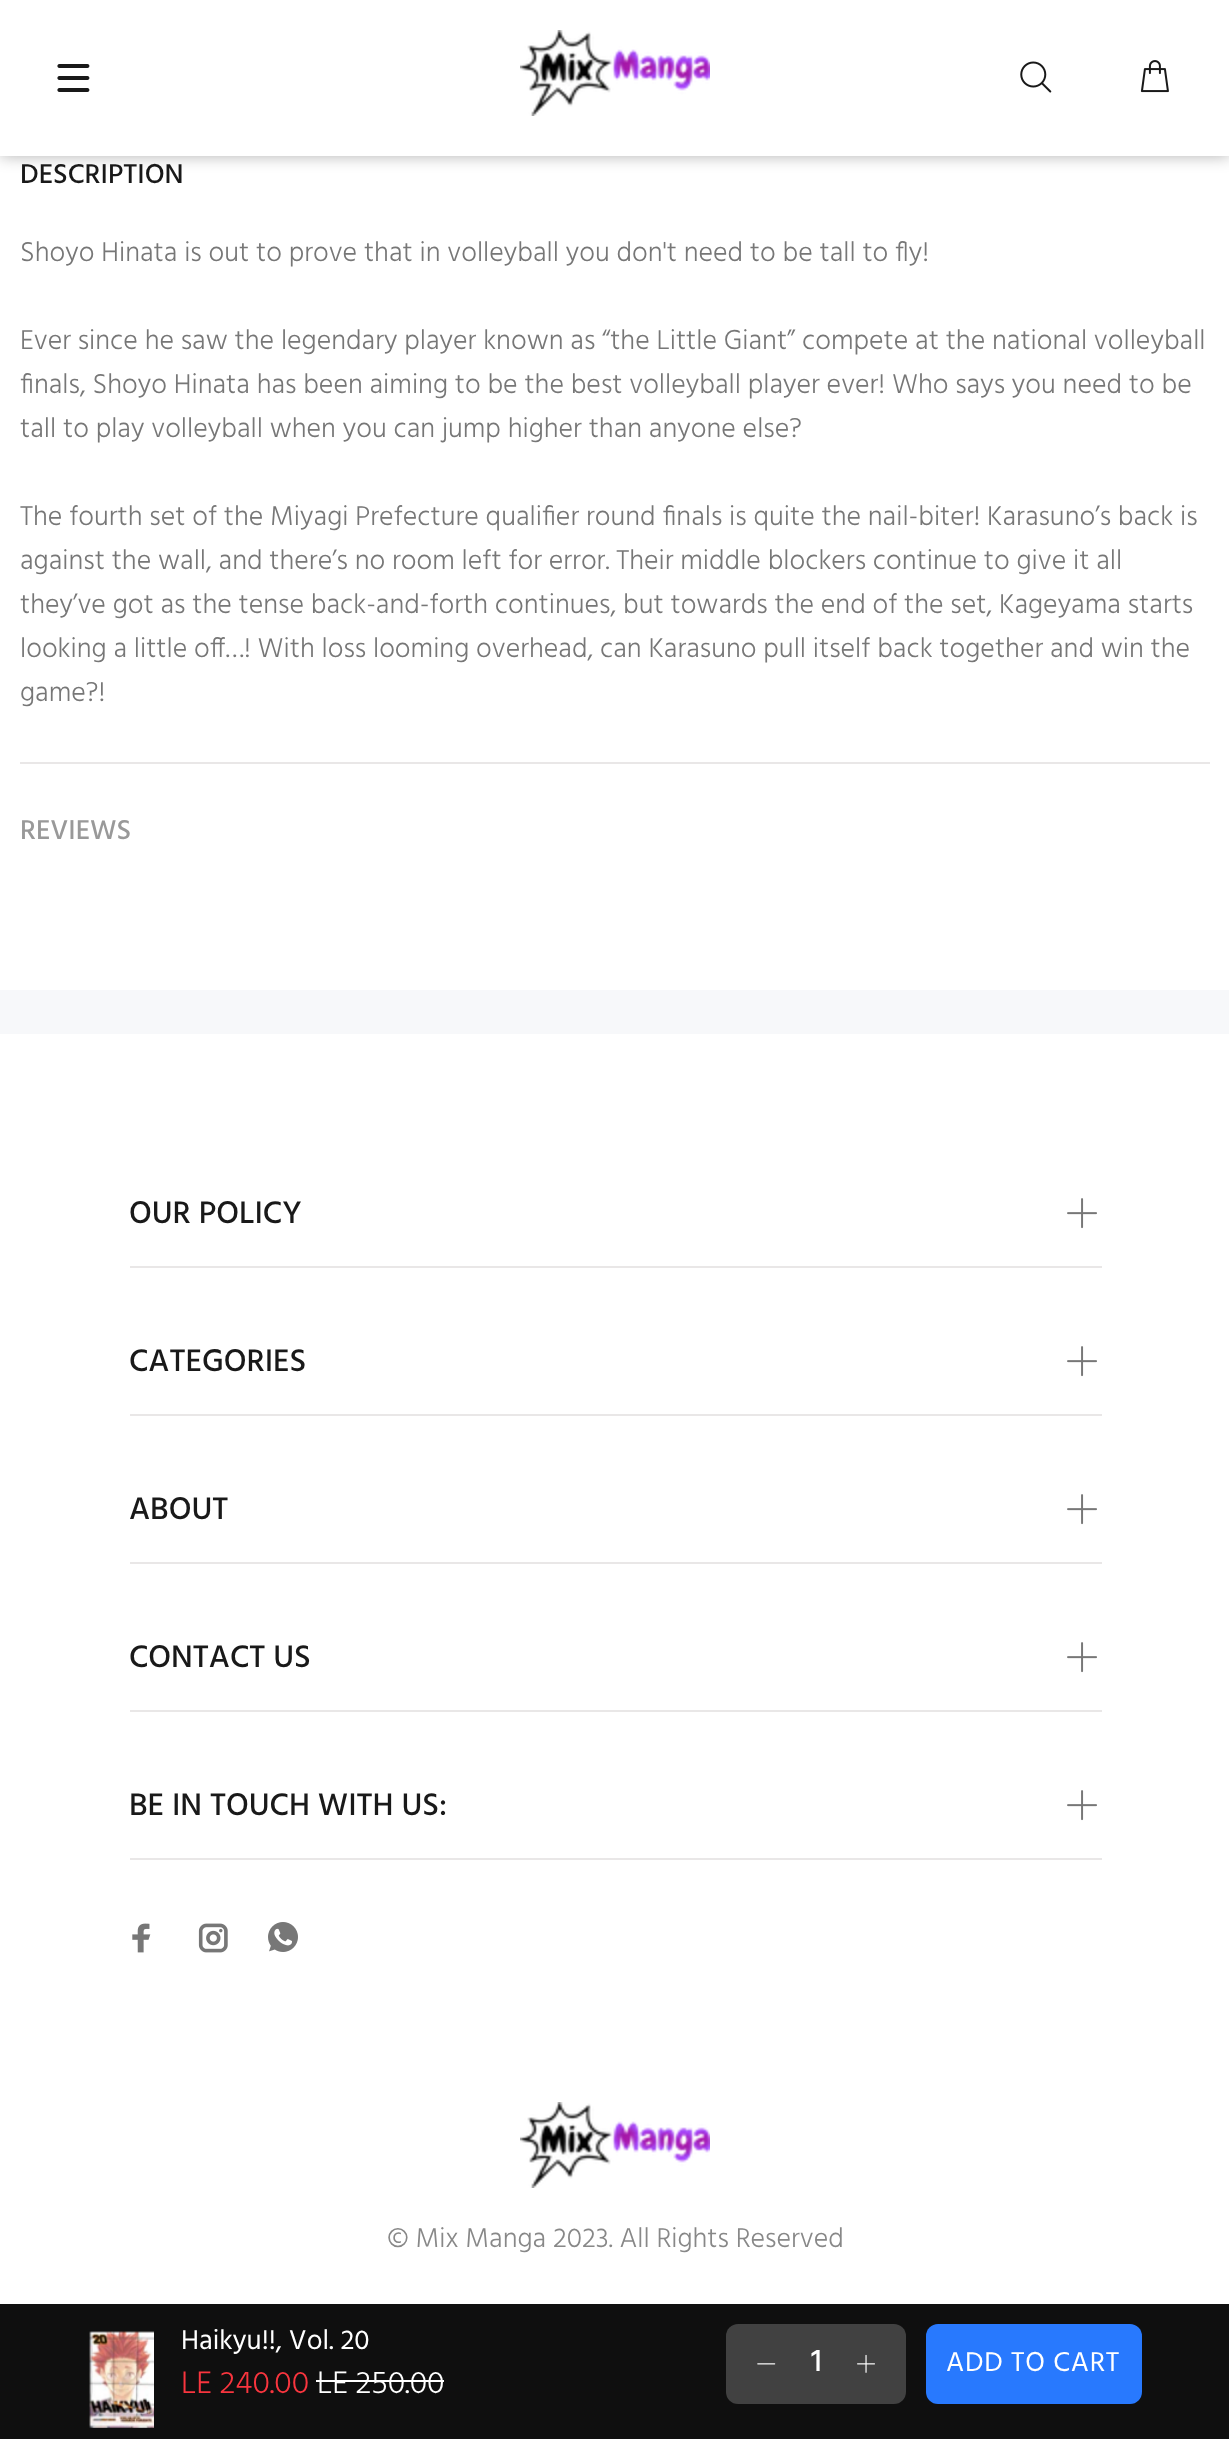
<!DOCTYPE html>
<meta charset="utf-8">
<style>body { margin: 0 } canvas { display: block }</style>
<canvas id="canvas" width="1229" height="2439"></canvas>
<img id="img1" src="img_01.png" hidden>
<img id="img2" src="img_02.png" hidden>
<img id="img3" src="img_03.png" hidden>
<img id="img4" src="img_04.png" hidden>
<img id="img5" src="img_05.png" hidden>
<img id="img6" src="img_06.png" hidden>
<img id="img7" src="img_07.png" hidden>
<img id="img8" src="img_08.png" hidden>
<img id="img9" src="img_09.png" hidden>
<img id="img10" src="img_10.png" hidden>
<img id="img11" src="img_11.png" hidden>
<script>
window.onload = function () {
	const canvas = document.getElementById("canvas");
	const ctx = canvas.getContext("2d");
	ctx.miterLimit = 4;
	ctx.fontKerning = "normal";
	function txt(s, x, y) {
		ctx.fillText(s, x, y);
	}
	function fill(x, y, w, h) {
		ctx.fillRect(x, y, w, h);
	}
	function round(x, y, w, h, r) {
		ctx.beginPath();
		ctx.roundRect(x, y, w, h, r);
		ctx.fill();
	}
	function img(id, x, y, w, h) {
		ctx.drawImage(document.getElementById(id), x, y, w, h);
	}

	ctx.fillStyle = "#FFFFFF";
	fill(0, 0, 1229, 2439);
	ctx.fillStyle = "rgba(0, 0, 0, 0.3)";
	ctx.filter = "blur(8px)";
	ctx.beginPath();
	ctx.rect(0, 0, 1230, 156);
	ctx.fill();
	ctx.filter = "none";
	ctx.fillStyle = "#FFFFFF";
	fill(0, 0, 1229, 156);
	img("img1", 57, 64, 33, 28);
	img("img2", 520, 30, 190, 86);
	img("img3", 1020, 61, 32, 32);
	img("img4", 1140, 60, 29, 33);
	ctx.fillStyle = "#E9E7E7";
	fill(20, 762, 1190, 2);
	ctx.fillStyle = "#F7F8FA";
	fill(0, 990, 1229, 44);
	ctx.fillStyle = "#0F0F0F";
	fill(0, 2304, 1229, 135);
	img("img5", 89, 2331, 65, 97);
	ctx.fillStyle = "#FFFFFF";
	fill(316, 2380, 128, 2);
	ctx.fillStyle = "#414141";
	round(726, 2324, 180, 80, 12);
	img("img6", 757, 2363, 19, 2);
	img("img7", 857, 2354, 18, 19);
	ctx.fillStyle = "#2879FE";
	round(926, 2324, 216, 80, 12);
	ctx.fillStyle = "#E9E7E7";
	fill(130, 1266, 972, 2);
	img("img8", 1067, 1198, 30, 31);
	fill(130, 1414, 972, 2);
	img("img8", 1067, 1346, 30, 31);
	fill(130, 1562, 972, 2);
	img("img8", 1067, 1494, 30, 31);
	fill(130, 1710, 972, 2);
	img("img8", 1067, 1642, 30, 31);
	fill(130, 1858, 972, 2);
	img("img8", 1067, 1790, 30, 31);
	img("img9", 132, 1923, 19, 30);
	img("img10", 198, 1923, 30, 30);
	img("img11", 268, 1922, 30, 30);
	img("img2", 520, 2102, 190, 86);
	ctx.font = "500 28px Hind";
	ctx.fillStyle = "#191919";
	txt("DESCRIPTION", 20, 183);
	ctx.font = "300 28px Hind";
	ctx.fillStyle = "#777777";
	txt("Shoyo Hinata is out to prove that in volleyball you don't need to be tall to fly!", 20, 261);
	txt("Ever since he saw the legendary player known as “the Little Giant” compete at the national volleyball", 20, 349);
	txt("finals, Shoyo Hinata has been aiming to be the best volleyball player ever! Who says you need to be", 20, 393);
	txt("tall to play volleyball when you can jump higher than anyone else?", 20, 437);
	txt("The fourth set of the Miyagi Prefecture qualifier round finals is quite the nail-biter! Karasuno’s back is", 20, 525);
	txt("against the wall, and there’s no room left for error. Their middle blockers continue to give it all", 20, 569);
	txt("they’ve got as the tense back-and-forth continues, but towards the end of the set, Kageyama starts", 20, 613);
	txt("looking a little off…! With loss looming overhead, can Karasuno pull itself back together and win the", 20, 657);
	txt("game?!", 20, 701);
	ctx.font = "500 28px Hind";
	ctx.fillStyle = "#999999";
	txt("REVIEWS", 20, 839);
	ctx.font = "28px Hind";
	ctx.fillStyle = "#FFFFFF";
	txt("Haikyu!!, Vol. 20", 181, 2349);
	ctx.font = "300 32px Hind";
	ctx.fillStyle = "#F8353E";
	txt("LE 240.00", 181, 2393);
	ctx.fillStyle = "#FFFFFF";
	txt("LE 250.00", 317, 2393);
	ctx.font = "500 32px Hind";
	txt("1", 811, 2371);
	ctx.letterSpacing = "0.75px";
	ctx.font = "28px Hind";
	txt("ADD TO CART", 946, 2371);
	ctx.letterSpacing = "0px";
	ctx.font = "500 32px Hind";
	ctx.fillStyle = "#191919";
	txt("OUR POLICY", 129, 1223);
	txt("CATEGORIES", 129, 1371);
	txt("ABOUT", 129, 1519);
	txt("CONTACT US", 129, 1667);
	txt("BE IN TOUCH WITH US:", 129, 1815);
	ctx.font = "300 28px Hind";
	ctx.fillStyle = "#888888";
	txt("© Mix Manga 2023. All Rights Reserved", 387, 2247);
};
</script>
